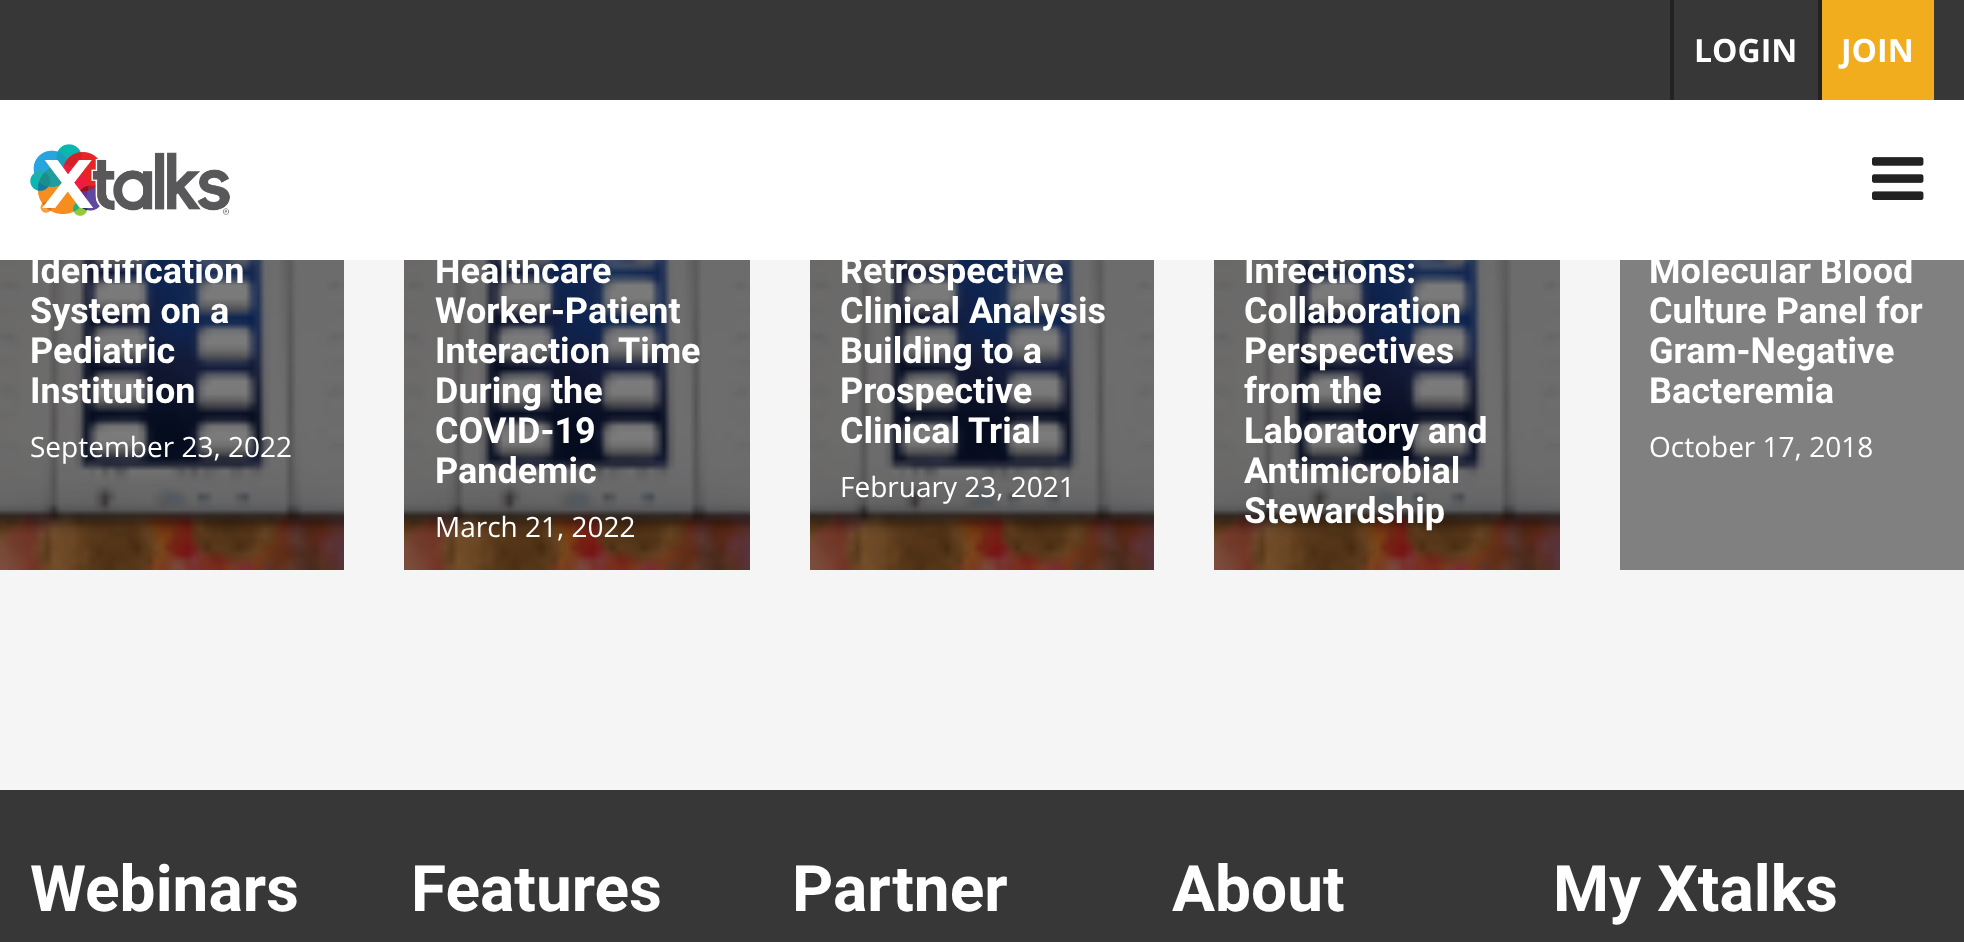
<!DOCTYPE html>
<meta charset="utf-8">
<style>body { margin: 0 } canvas { display: block }</style>
<canvas id="canvas" width="1964" height="942"></canvas>
<img id="img1" src="img_01.png" hidden>
<img id="img2" src="img_02.png" hidden>
<img id="img3" src="img_03.png" hidden>
<img id="img4" src="img_04.png" hidden>
<script>
window.onload = function () {
	const canvas = document.getElementById("canvas");
	const ctx = canvas.getContext("2d");
	ctx.miterLimit = 4;
	ctx.fontKerning = "normal";
	function txt(s, x, y) {
		ctx.fillText(s, x, y);
	}
	function fill(x, y, w, h) {
		ctx.fillRect(x, y, w, h);
	}
	function img(id, x, y, w, h) {
		ctx.drawImage(document.getElementById(id), x, y, w, h);
	}

	ctx.fillStyle = "#F5F5F5";
	fill(0, 0, 1964, 942);
	ctx.fillStyle = "#FFFFFF";
	fill(0, 100, 1964, 160);
	ctx.fillStyle = "#373737";
	fill(0, 0, 1964, 100);
	ctx.fillStyle = "#222222";
	fill(1670, 0, 4, 100);
	ctx.fillStyle = "#F1AD1E";
	fill(1822, 0, 112, 100);
	ctx.fillStyle = "#222222";
	fill(1818, 0, 4, 100);
	img("img1", 30, 144, 200, 72);
	img("img2", 1872, 157, 52, 43);
	img("img3", 0, 260, 344, 310);
	img("img4", 404, 260, 346, 310);
	img("img3", 810, 260, 344, 310);
	img("img4", 1214, 260, 346, 310);
	ctx.fillStyle = "#808080";
	fill(1620, 260, 344, 310);
	ctx.fillStyle = "#373737";
	fill(0, 790, 1964, 152);
	ctx.font = "bold 32px Open Sans";
	ctx.fillStyle = "#FFFFFF";
	txt("LOGIN", 1694, 62);
	txt("JOIN", 1841, 62);
	ctx.font = "bold 36px Roboto";
	txt("Identification", 30, 283);
	txt("System on a", 30, 323);
	txt("Pediatric", 30, 363);
	txt("Institution", 30, 403);
	ctx.font = "28px Open Sans";
	txt("September 23, 2022", 30, 457);
	ctx.font = "bold 36px Roboto";
	txt("Healthcare", 435, 283);
	txt("Worker-Patient", 435, 323);
	txt("Interaction Time", 435, 363);
	txt("During the", 435, 403);
	txt("COVID-19", 435, 443);
	txt("Pandemic", 435, 483);
	ctx.font = "28px Open Sans";
	txt("March 21, 2022", 435, 537);
	ctx.font = "bold 36px Roboto";
	txt("Retrospective", 840, 283);
	txt("Clinical Analysis", 840, 323);
	txt("Building to a", 840, 363);
	txt("Prospective", 840, 403);
	txt("Clinical Trial", 840, 443);
	ctx.font = "28px Open Sans";
	txt("February 23, 2021", 840, 497);
	ctx.font = "bold 36px Roboto";
	txt("Infections:", 1244, 283);
	txt("Collaboration", 1244, 323);
	txt("Perspectives", 1244, 363);
	txt("from the", 1244, 403);
	txt("Laboratory and", 1244, 443);
	txt("Antimicrobial", 1244, 483);
	txt("Stewardship", 1244, 523);
	txt("Molecular Blood", 1649, 283);
	txt("Culture Panel for", 1649, 323);
	txt("Gram-Negative", 1649, 363);
	txt("Bacteremia", 1649, 403);
	ctx.font = "28px Open Sans";
	txt("October 17, 2018", 1649, 457);
	ctx.font = "bold 64px Roboto";
	txt("Webinars", 30, 911);
	txt("Features", 411, 911);
	txt("Partner", 792, 911);
	txt("About", 1172, 911);
	txt("My Xtalks", 1553, 911);
};
</script>
